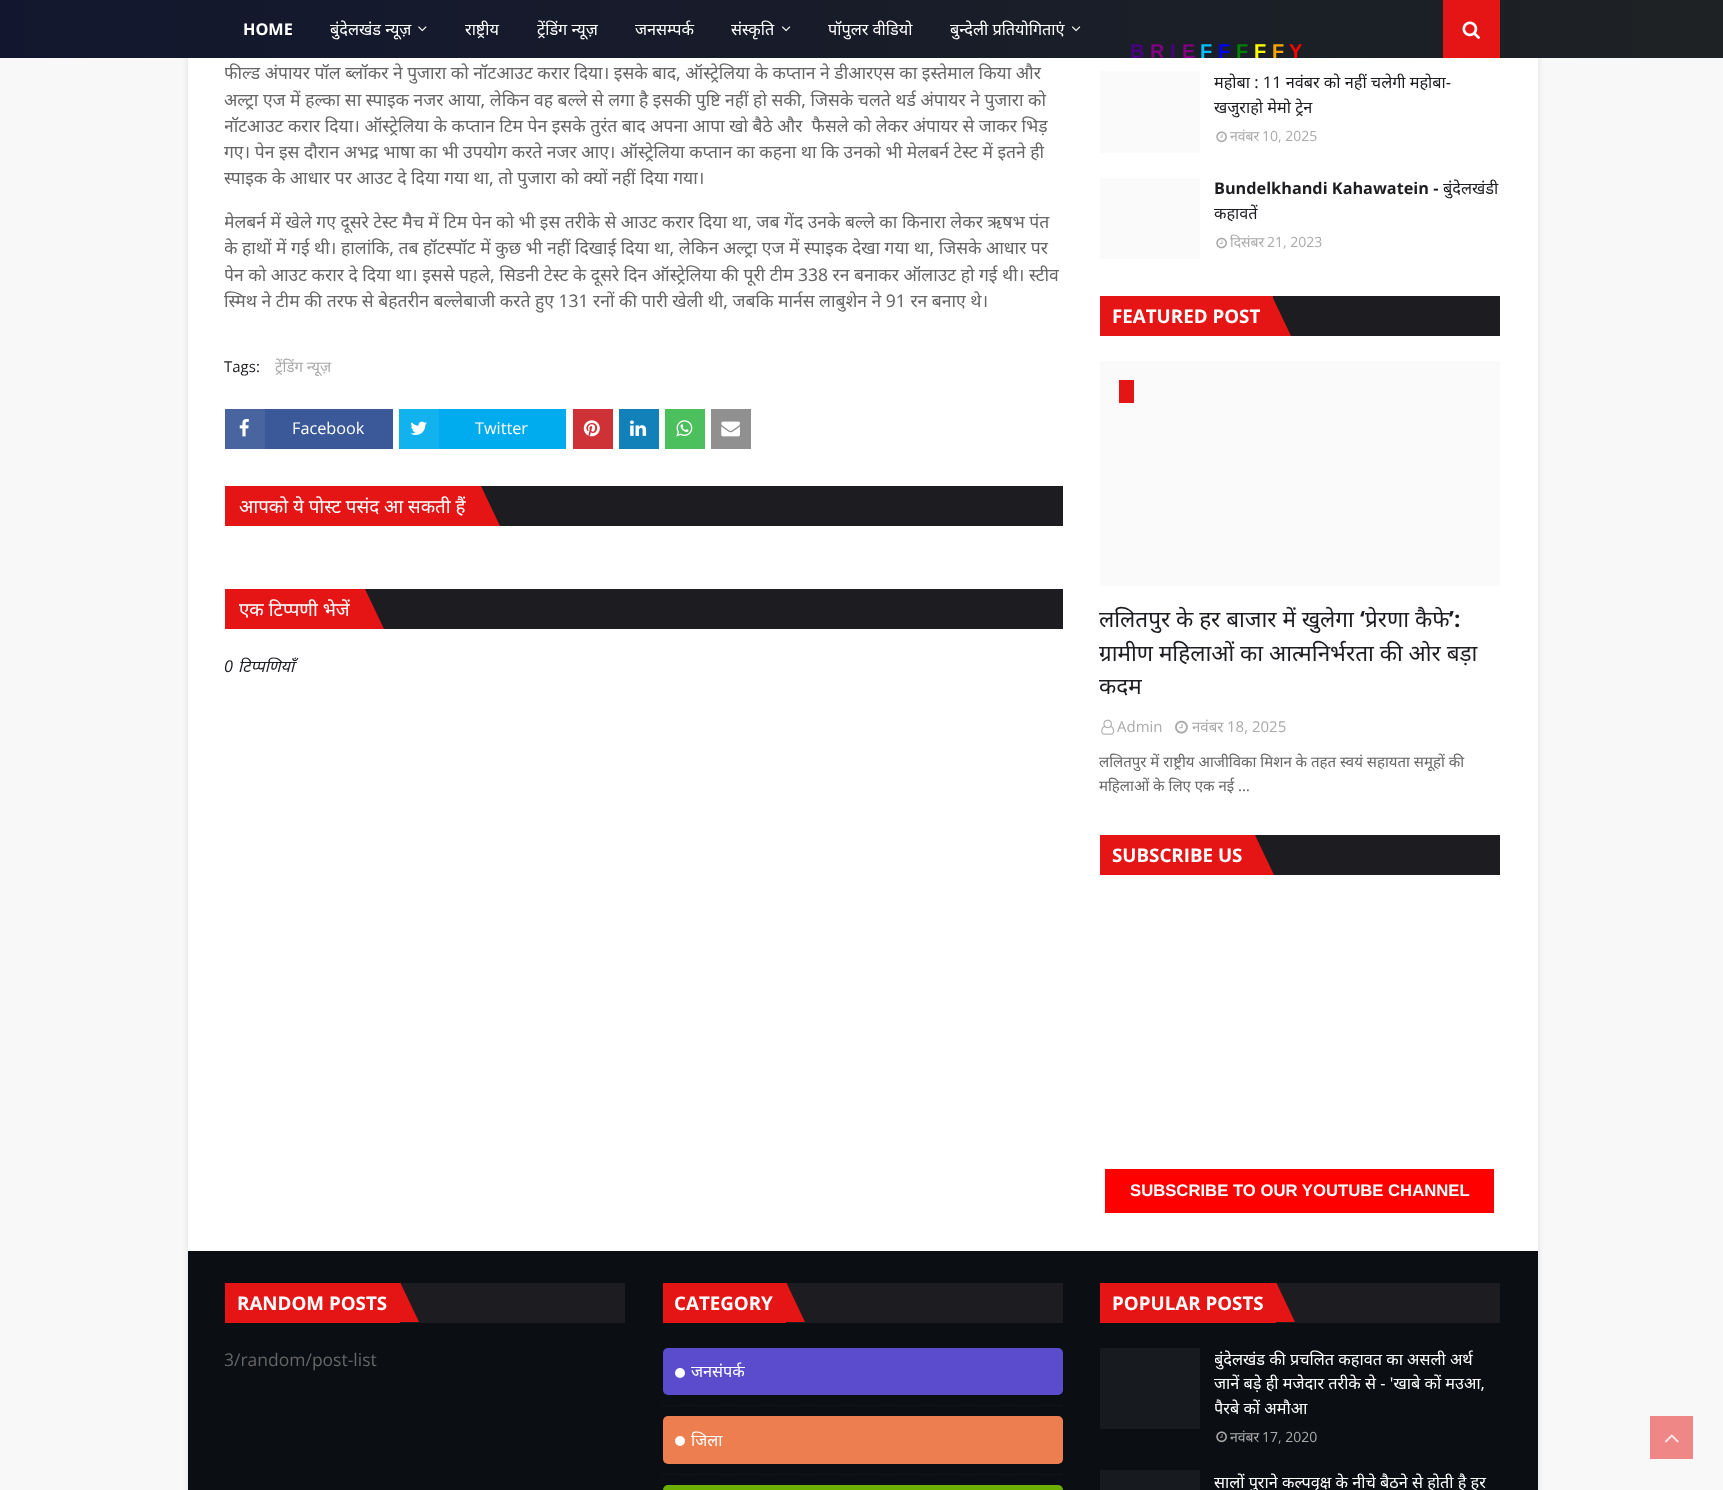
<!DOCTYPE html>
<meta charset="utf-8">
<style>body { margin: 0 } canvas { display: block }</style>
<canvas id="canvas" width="1723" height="1490"></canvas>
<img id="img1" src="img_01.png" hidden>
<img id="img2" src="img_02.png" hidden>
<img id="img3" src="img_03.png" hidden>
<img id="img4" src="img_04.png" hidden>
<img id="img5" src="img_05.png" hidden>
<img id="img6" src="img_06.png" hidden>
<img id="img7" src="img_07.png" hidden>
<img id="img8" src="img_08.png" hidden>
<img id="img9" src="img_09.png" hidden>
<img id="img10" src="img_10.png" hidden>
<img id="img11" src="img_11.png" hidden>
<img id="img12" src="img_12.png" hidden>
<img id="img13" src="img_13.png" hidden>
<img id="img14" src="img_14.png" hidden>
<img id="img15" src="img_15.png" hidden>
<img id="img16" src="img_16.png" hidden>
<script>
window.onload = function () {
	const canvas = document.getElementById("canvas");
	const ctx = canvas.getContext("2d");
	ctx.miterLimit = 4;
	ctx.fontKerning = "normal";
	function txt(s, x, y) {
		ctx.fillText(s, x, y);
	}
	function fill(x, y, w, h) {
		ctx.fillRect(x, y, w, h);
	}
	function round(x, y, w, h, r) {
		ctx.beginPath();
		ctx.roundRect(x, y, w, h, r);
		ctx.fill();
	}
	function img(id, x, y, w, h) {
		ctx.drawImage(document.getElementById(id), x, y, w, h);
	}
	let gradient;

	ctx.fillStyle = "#F8F8F8";
	fill(0, 0, 1723, 1490);
	ctx.fillStyle = "rgba(0, 0, 0, 0.1)";
	ctx.filter = "blur(3px)";
	ctx.beginPath();
	ctx.rect(188, -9, 1350, 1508);
	ctx.fill();
	ctx.filter = "none";
	ctx.fillStyle = "#FFFFFF";
	fill(188, 58, 1350, 1193);
	gradient = ctx.createLinearGradient(0, 29, 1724, 29);
	gradient.addColorStop(0, "#12172F");
	gradient.addColorStop(1, "#1E2224");
	ctx.fillStyle = gradient;
	fill(0, 0, 1723, 58);
	img("img1", 418, 26, 9, 6);
	img("img2", 782, 26, 9, 6);
	img("img3", 1072, 26, 9, 6);
	ctx.fillStyle = "#E61515";
	fill(1443, 0, 57, 58);
	img("img4", 1462, 21, 18, 18);
	ctx.fillStyle = "#3B5999";
	fill(265, 409, 128, 40);
	ctx.fillStyle = "#4965A0";
	fill(225, 409, 40, 40);
	img("img5", 239, 418, 10, 19);
	ctx.fillStyle = "#00ACEE";
	fill(439, 409, 127, 40);
	ctx.fillStyle = "#12B2EF";
	fill(399, 409, 40, 40);
	img("img6", 410, 421, 17, 14);
	ctx.fillStyle = "#CE3136";
	fill(573, 409, 40, 40);
	img("img7", 583, 420, 17, 17);
	ctx.fillStyle = "#1281BA";
	fill(619, 409, 40, 40);
	img("img8", 630, 420, 17, 16);
	ctx.fillStyle = "#4CC05C";
	fill(665, 409, 40, 40);
	img("img9", 676, 420, 17, 17);
	ctx.fillStyle = "#909090";
	fill(711, 409, 40, 40);
	img("img10", 721, 421, 19, 16);
	ctx.fillStyle = "#1D1D21";
	fill(481, 486, 582, 40);
	ctx.fillStyle = "#E61515";
	fill(225, 486, 256, 40);
	ctx.beginPath();
	ctx.moveTo(481, 526);
	ctx.lineTo(481, 486);
	ctx.lineTo(500, 526);
	ctx.closePath();
	ctx.fill();
	ctx.fillStyle = "#1D1D21";
	fill(365, 589, 698, 40);
	ctx.fillStyle = "#E61515";
	fill(225, 589, 140, 40);
	ctx.beginPath();
	ctx.moveTo(365, 629);
	ctx.lineTo(365, 589);
	ctx.lineTo(384, 629);
	ctx.closePath();
	ctx.fill();
	ctx.fillStyle = "#FAFAFA";
	fill(1100, 71, 100, 82);
	img("img11", 1216, 131, 11, 12);
	fill(1100, 178, 100, 81);
	img("img12", 1216, 237, 11, 12);
	ctx.fillStyle = "#1D1D21";
	fill(1273, 296, 227, 40);
	ctx.fillStyle = "#E61515";
	fill(1100, 296, 173, 40);
	ctx.beginPath();
	ctx.moveTo(1272, 336);
	ctx.lineTo(1272, 296);
	ctx.lineTo(1291, 336);
	ctx.closePath();
	ctx.fill();
	ctx.fillStyle = "#FAFAFA";
	fill(1100, 361, 400, 225);
	ctx.fillStyle = "#E61515";
	fill(1119, 380, 15, 23);
	img("img13", 1101, 719, 14, 16);
	img("img14", 1175, 720, 13, 14);
	ctx.fillStyle = "#1D1D21";
	fill(1255, 835, 245, 40);
	ctx.fillStyle = "#E61515";
	fill(1100, 835, 155, 40);
	ctx.beginPath();
	ctx.moveTo(1255, 875);
	ctx.lineTo(1255, 835);
	ctx.lineTo(1274, 875);
	ctx.closePath();
	ctx.fill();
	ctx.fillStyle = "#FF0000";
	fill(1105, 1169, 389, 44);
	ctx.fillStyle = "#0B0E13";
	fill(188, 1251, 1350, 239);
	ctx.fillStyle = "#1D1D21";
	fill(400, 1283, 225, 40);
	ctx.fillStyle = "#E61515";
	fill(225, 1283, 175, 40);
	ctx.beginPath();
	ctx.moveTo(400, 1322);
	ctx.lineTo(400, 1282);
	ctx.lineTo(419, 1322);
	ctx.closePath();
	ctx.fill();
	ctx.fillStyle = "#1D1D21";
	fill(786, 1283, 277, 40);
	ctx.fillStyle = "#E61515";
	fill(663, 1283, 123, 40);
	ctx.beginPath();
	ctx.moveTo(786, 1322);
	ctx.lineTo(786, 1282);
	ctx.lineTo(805, 1322);
	ctx.closePath();
	ctx.fill();
	ctx.fillStyle = "#5B4CCE";
	round(663, 1348, 400, 47, 5);
	ctx.fillStyle = "#FFFFFF";
	ctx.beginPath();
	ctx.arc(680, 1373, 5, 0, Math.PI * 2);
	ctx.fill();
	ctx.beginPath();
	ctx.moveTo(662.5, 1405.5);
	ctx.lineTo(1062.5, 1405.5);
	ctx.strokeStyle = "#171A1F";
	ctx.lineWidth = 1.2;
	ctx.setLineDash([1.25, 1.25]);
	ctx.stroke();
	ctx.fillStyle = "#ED7E4F";
	round(663, 1416, 400, 48, 5);
	ctx.fillStyle = "#FFFFFF";
	ctx.beginPath();
	ctx.arc(680, 1441, 5, 0, Math.PI * 2);
	ctx.fill();
	ctx.beginPath();
	ctx.moveTo(662.5, 1474.5);
	ctx.lineTo(1062.5, 1474.5);
	ctx.stroke();
	ctx.fillStyle = "#6CAF00";
	round(663, 1485, 400, 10, 5);
	ctx.fillStyle = "#1D1D21";
	fill(1276, 1283, 224, 40);
	ctx.fillStyle = "#E61515";
	fill(1100, 1283, 176, 40);
	ctx.beginPath();
	ctx.moveTo(1276, 1322);
	ctx.lineTo(1276, 1282);
	ctx.lineTo(1295, 1322);
	ctx.closePath();
	ctx.fill();
	ctx.fillStyle = "#171A1F";
	fill(1100, 1348, 100, 81);
	img("img15", 1216, 1431, 11, 12);
	fill(1100, 1470, 100, 20);
	ctx.fillStyle = "#EF8787";
	fill(1650, 1416, 43, 43);
	img("img16", 1664, 1434, 15, 9);
	ctx.font = "bold 16.25px Open Sans";
	ctx.fillStyle = "#FFFFFF";
	txt("HOME", 243, 35);
	ctx.font = "16.25px Noto Sans";
	txt("बुंदेलखंड न्यूज़", 330, 35);
	txt("राष्ट्रीय", 465, 35);
	txt("ट्रेंडिंग न्यूज़", 537, 35);
	txt("जनसम्पर्क", 635, 35);
	txt("संस्कृति", 731, 35);
	txt("पॉपुलर वीडियो", 828, 35);
	txt("बुन्देली प्रतियोगिताएं", 950, 35);
	ctx.font = "bold 20px Liberation Sans";
	ctx.fillStyle = "#4B0082";
	txt("B", 1130, 58);
	ctx.fillStyle = "#800080";
	txt("R", 1150, 58);
	ctx.fillStyle = "#4B0082";
	txt("I", 1170, 58);
	ctx.fillStyle = "#800080";
	txt("E", 1182, 58);
	ctx.fillStyle = "#00BFFF";
	txt("F", 1200, 58);
	ctx.fillStyle = "#0000FF";
	txt("F", 1218, 58);
	ctx.fillStyle = "#008000";
	txt("F", 1236, 58);
	ctx.fillStyle = "#FFFF00";
	txt("F", 1254, 58);
	ctx.fillStyle = "#FFA500";
	txt("F", 1272, 58);
	ctx.fillStyle = "#FF0000";
	txt("Y", 1289, 58);
	ctx.save();
	ctx.beginPath();
	ctx.rect(225, 0, 838, 331);
	ctx.clip();
	ctx.font = "17.5px Noto Sans";
	ctx.fillStyle = "#666666";
	txt("फील्ड अंपायर पॉल ब्लॉकर ने पुजारा को नॉटआउट करार दिया। इसके बाद, ऑस्ट्रेलिया के कप्तान ने डीआरएस का इस्तेमाल किया और", 224, 79);
	ctx.restore();
	ctx.font = "17.5px Noto Sans";
	ctx.fillStyle = "#666666";
	txt("अल्ट्रा एज में हल्का सा स्पाइक नजर आया, लेकिन वह बल्ले से लगा है इसकी पुष्टि नहीं हो सकी, जिसके चलते थर्ड अंपायर ने पुजारा को", 224, 106);
	ctx.save();
	ctx.beginPath();
	ctx.rect(225, 0, 838, 331);
	ctx.clip();
	txt("नॉटआउट करार दिया। ऑस्ट्रेलिया के कप्तान टिम पेन इसके तुरंत बाद अपना आपा खो बैठे और  फैसले को लेकर अंपायर से जाकर भिड़", 224, 132);
	ctx.restore();
	txt("गए। पेन इस दौरान अभद्र भाषा का भी उपयोग करते नजर आए। ऑस्ट्रेलिया कप्तान का कहना था कि उनको भी मेलबर्न टेस्ट में इतने ही", 224, 158);
	txt("स्पाइक के आधार पर आउट दे दिया गया था, तो पुजारा को क्यों नहीं दिया गया।", 224, 184);
	ctx.save();
	ctx.beginPath();
	ctx.rect(225, 0, 838, 331);
	ctx.clip();
	txt("मेलबर्न में खेले गए दूसरे टेस्ट मैच में टिम पेन को भी इस तरीके से आउट करार दिया था, जब गेंद उनके बल्ले का किनारा लेकर ऋषभ पंत", 224, 228);
	txt("के हाथों में गई थी। हालांकि, तब हॉटस्पॉट में कुछ भी नहीं दिखाई दिया था, लेकिन अल्ट्रा एज में स्पाइक देखा गया था, जिसके आधार पर", 224, 254);
	txt("पेन को आउट करार दे दिया था। इससे पहले, सिडनी टेस्ट के दूसरे दिन ऑस्ट्रेलिया की पूरी टीम 338 रन बनाकर ऑलाउट हो गई थी। स्टीव", 224, 281);
	ctx.restore();
	txt("स्मिथ ने टीम की तरफ से बेहतरीन बल्लेबाजी करते हुए 131 रनों की पारी खेली थी, जबकि मार्नस लाबुशेन ने 91 रन बनाए थे।", 224, 307);
	ctx.font = "15px Open Sans";
	ctx.fillStyle = "#1D1D21";
	txt("Tags:", 224, 372);
	ctx.font = "15px Noto Sans";
	ctx.fillStyle = "#AAAAAA";
	txt("ट्रेंडिंग न्यूज़", 275, 372);
	ctx.font = "16.25px Open Sans";
	ctx.fillStyle = "#FFFFFF";
	txt("Facebook", 292, 434);
	txt("Twitter", 475, 434);
	ctx.font = "18.75px Noto Sans";
	txt("आपको ये पोस्ट पसंद आ सकती हैं", 239, 513);
	txt("एक टिप्पणी भेजें", 239, 616);
	ctx.font = "italic 16.25px Open Sans";
	ctx.fillStyle = "#1D1D21";
	txt("0", 224, 672);
	ctx.font = "italic 16.25px Noto Sans";
	txt("टिप्पणियाँ", 238, 672);
	ctx.font = "16.25px Noto Sans";
	txt("महोबा : 11 नवंबर को नहीं चलेगी महोबा-", 1214, 88);
	txt("खजुराहो मेमो ट्रेन", 1214, 113);
	ctx.font = "14px Noto Sans";
	ctx.fillStyle = "#AAAAAA";
	txt("नवंबर", 1230, 141);
	ctx.font = "14px Open Sans";
	txt("10, 2025", 1262, 141);
	ctx.font = "bold 16.25px Open Sans";
	ctx.fillStyle = "#1D1D21";
	txt("Bundelkhandi Kahawatein -", 1214, 194);
	ctx.font = "16.25px Noto Sans";
	txt("बुंदेलखंडी", 1443, 194);
	txt("कहावतें", 1214, 219);
	ctx.font = "14px Noto Sans";
	ctx.fillStyle = "#AAAAAA";
	txt("दिसंबर", 1230, 247);
	ctx.font = "14px Open Sans";
	txt("21, 2023", 1267, 247);
	ctx.font = "bold 18.75px Open Sans";
	ctx.fillStyle = "#FFFFFF";
	txt("FEATURED POST", 1112, 323);
	ctx.font = "22.5px Noto Sans";
	ctx.fillStyle = "#1D1D21";
	txt("ललितपुर के हर बाजार में खुलेगा", 1099, 627);
	ctx.font = "bold 22.5px Open Sans";
	txt("‘", 1360, 627);
	ctx.font = "22.5px Noto Sans";
	txt("प्रेरणा कैफे", 1365, 627);
	ctx.font = "bold 22.5px Open Sans";
	txt("’:", 1449, 627);
	ctx.font = "22.5px Noto Sans";
	txt("ग्रामीण महिलाओं का आत्मनिर्भरता की ओर बड़ा", 1099, 661);
	txt("कदम", 1099, 694);
	ctx.font = "15px Open Sans";
	ctx.fillStyle = "#AAAAAA";
	txt("Admin", 1117, 732);
	ctx.font = "15px Noto Sans";
	txt("नवंबर", 1192, 732);
	ctx.font = "15px Open Sans";
	txt("18, 2025", 1227, 732);
	ctx.font = "15px Noto Sans";
	ctx.fillStyle = "#666666";
	txt("ललितपुर में राष्ट्रीय आजीविका मिशन के तहत स्वयं सहायता समूहों की", 1099, 767);
	txt("महिलाओं के लिए एक नई …", 1099, 791);
	ctx.font = "bold 18.75px Open Sans";
	ctx.fillStyle = "#FFFFFF";
	txt("SUBSCRIBE US", 1112, 862);
	ctx.font = "bold 16.7px Liberation Sans";
	txt("SUBSCRIBE TO OUR YOUTUBE CHANNEL", 1130, 1196);
	ctx.font = "bold 18.75px Open Sans";
	txt("RANDOM POSTS", 237, 1310);
	ctx.font = "17.5px Open Sans";
	ctx.fillStyle = "#666666";
	txt("3/random/post-list", 224, 1366);
	ctx.font = "bold 18.75px Open Sans";
	ctx.fillStyle = "#FFFFFF";
	txt("CATEGORY", 674, 1310);
	ctx.font = "16.25px Noto Sans";
	txt("जनसंपर्क", 691, 1377);
	txt("जिला", 691, 1446);
	ctx.font = "bold 18.75px Open Sans";
	txt("POPULAR POSTS", 1112, 1310);
	ctx.save();
	ctx.beginPath();
	ctx.rect(1215, 1348, 285, 97);
	ctx.clip();
	ctx.font = "16.25px Noto Sans";
	txt("बुंदेलखंड की प्रचलित कहावत का असली अर्थ", 1214, 1365);
	ctx.restore();
	ctx.font = "16.25px Noto Sans";
	txt("जानें बड़े ही मजेदार तरीके से - 'खाबे कों मउआ,", 1214, 1389);
	ctx.save();
	ctx.beginPath();
	ctx.rect(1215, 1348, 285, 97);
	ctx.clip();
	txt("पैरबे कों अमौआ", 1214, 1414);
	ctx.restore();
	ctx.font = "14px Noto Sans";
	ctx.fillStyle = "#AAAAAA";
	txt("नवंबर", 1230, 1442);
	ctx.font = "14px Open Sans";
	txt("17, 2020", 1262, 1442);
	ctx.font = "16.25px Noto Sans";
	ctx.fillStyle = "#FFFFFF";
	txt("सालों पुराने कल्पवृक्ष के नीचे बैठने से होती है हर", 1214, 1488);
};
</script>
